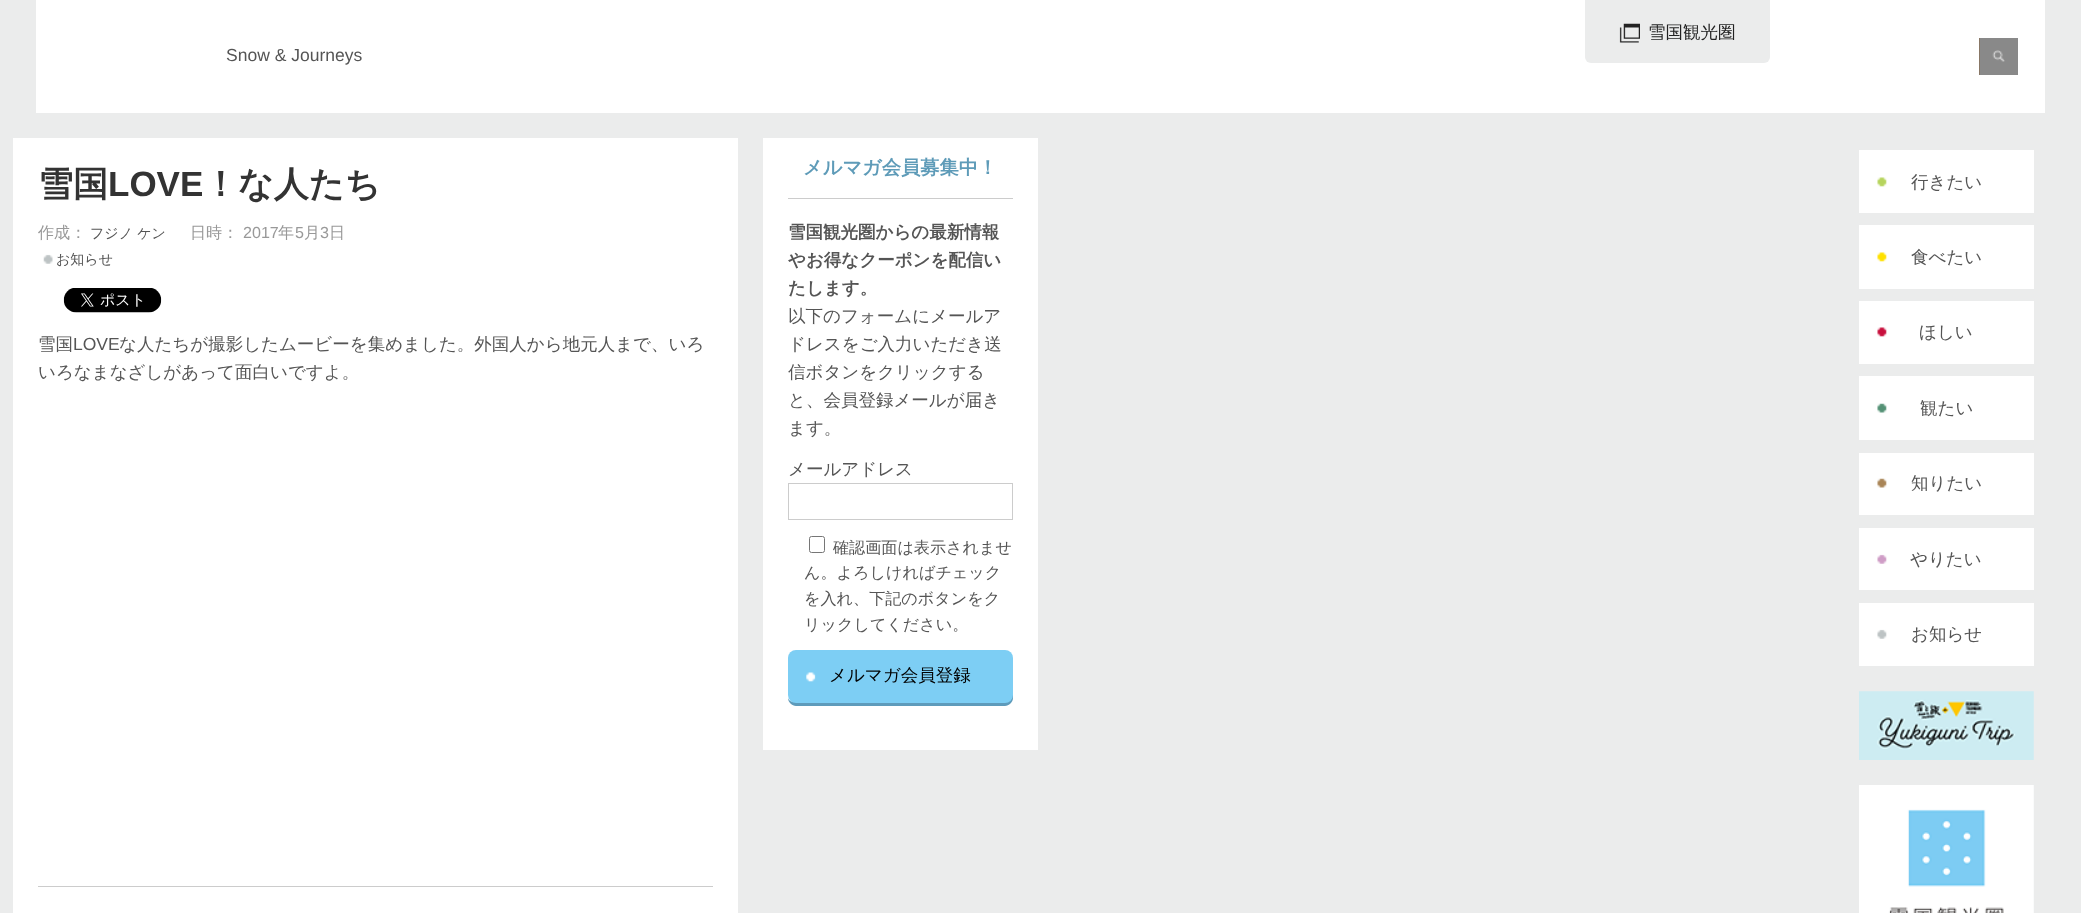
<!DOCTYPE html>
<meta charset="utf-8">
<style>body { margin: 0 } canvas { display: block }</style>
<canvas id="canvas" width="2081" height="913"></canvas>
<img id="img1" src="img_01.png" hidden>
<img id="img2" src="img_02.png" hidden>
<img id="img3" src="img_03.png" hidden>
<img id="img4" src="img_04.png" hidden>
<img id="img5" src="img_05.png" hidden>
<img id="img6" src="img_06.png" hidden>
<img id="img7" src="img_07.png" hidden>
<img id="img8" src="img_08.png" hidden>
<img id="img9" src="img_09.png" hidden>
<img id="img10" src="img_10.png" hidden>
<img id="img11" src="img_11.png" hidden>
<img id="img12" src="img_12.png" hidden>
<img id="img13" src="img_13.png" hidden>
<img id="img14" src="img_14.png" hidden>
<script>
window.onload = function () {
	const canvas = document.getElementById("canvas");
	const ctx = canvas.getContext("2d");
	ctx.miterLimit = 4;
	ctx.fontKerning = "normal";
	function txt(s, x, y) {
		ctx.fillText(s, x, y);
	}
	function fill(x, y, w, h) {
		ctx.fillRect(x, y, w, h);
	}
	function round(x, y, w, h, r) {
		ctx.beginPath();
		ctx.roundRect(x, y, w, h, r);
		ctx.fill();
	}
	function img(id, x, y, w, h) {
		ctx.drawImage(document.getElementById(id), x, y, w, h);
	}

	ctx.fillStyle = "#EBECEC";
	fill(0, 0, 2081, 913);
	ctx.fillStyle = "#FFFFFF";
	fill(36, 0, 2009, 113);
	ctx.fillStyle = "#EBECEC";
	ctx.beginPath();
	ctx.roundRect(1585, 0, 185, 63, [0, 0, 6, 6]);
	ctx.fill();
	img("img1", 1619, 23, 21, 20);
	ctx.fillStyle = "#898989";
	fill(1980, 38, 38, 37);
	img("img2", 1992, 50, 13, 12);
	ctx.fillStyle = "#887766";
	fill(1979, 38, 1, 37);
	ctx.fillStyle = "#FFFFFF";
	fill(13, 138, 725, 775);
	img("img3", 43, 254, 10, 10);
	img("img4", 63, 288, 99, 25);
	ctx.fillStyle = "#CCCCCC";
	fill(38, 886, 675, 1);
	ctx.fillStyle = "#FFFFFF";
	fill(763, 138, 275, 612);
	ctx.fillStyle = "#CCCCCC";
	fill(788, 198, 225, 1);
	ctx.strokeStyle = "#CCCCCC";
	ctx.strokeRect(788.5, 483.5, 224, 36);
	ctx.beginPath();
	ctx.roundRect(809.5, 536.5, 15, 16, 2);
	ctx.strokeStyle = "#767676";
	ctx.stroke();
	ctx.fillStyle = "#5E9BBB";
	ctx.beginPath();
	ctx.moveTo(788, 698);
	ctx.bezierCurveTo(788, 702, 792, 706, 796, 706);
	ctx.lineTo(1005, 706);
	ctx.bezierCurveTo(1009, 706, 1013, 702, 1013, 698);
	ctx.lineTo(1013, 662);
	ctx.lineTo(1012, 659);
	ctx.lineTo(1012, 695);
	ctx.bezierCurveTo(1012, 699, 1009, 702, 1005, 702);
	ctx.lineTo(795, 702);
	ctx.bezierCurveTo(792, 702, 789, 701, 788, 698);
	ctx.closePath();
	ctx.fill();
	ctx.fillStyle = "#7DCEF4";
	round(788, 650, 225, 53, 8);
	img("img5", 806, 672, 10, 10);
	ctx.fillStyle = "#FFFFFF";
	fill(1859, 150, 175, 63);
	img("img6", 1877, 177, 10, 10);
	fill(1859, 225, 175, 64);
	img("img7", 1877, 252, 10, 10);
	fill(1859, 301, 175, 63);
	img("img8", 1877, 327, 10, 10);
	fill(1859, 376, 175, 64);
	img("img9", 1877, 403, 10, 10);
	fill(1859, 453, 175, 62);
	img("img10", 1877, 478, 10, 10);
	fill(1859, 528, 175, 62);
	img("img11", 1877, 554, 10, 10);
	fill(1859, 603, 175, 63);
	img("img12", 1877, 629, 10, 10);
	img("img13", 1859, 691, 175, 69);
	img("img14", 1859, 785, 175, 128);
	ctx.font = "500 17.5px WenQuanYi Zen Hei";
	ctx.fillStyle = "#222222";
	txt("雪国観光圏", 1648, 38);
	ctx.font = "17.5px Liberation Sans";
	ctx.fillStyle = "#555555";
	txt("Snow & Journeys", 226, 61);
	ctx.font = "bold 35px WenQuanYi Zen Hei";
	ctx.fillStyle = "#333333";
	txt("雪国", 38, 196);
	ctx.font = "bold 35px Liberation Sans";
	txt("LOVE", 108, 196);
	ctx.font = "bold 35px WenQuanYi Zen Hei";
	txt("！な人たち", 203, 196);
	ctx.font = "500 16.1px WenQuanYi Zen Hei";
	ctx.fillStyle = "#999999";
	txt("作成：", 38, 238);
	ctx.font = "500 14px WenQuanYi Zen Hei";
	ctx.fillStyle = "#555555";
	txt("フジノ ケン", 90, 238);
	ctx.font = "500 16.1px WenQuanYi Zen Hei";
	ctx.fillStyle = "#999999";
	txt("日時：", 190, 238);
	ctx.font = "16.1px Liberation Sans";
	txt("2017", 243, 238);
	ctx.font = "500 16.1px WenQuanYi Zen Hei";
	txt("年", 278, 238);
	ctx.font = "16.1px Liberation Sans";
	txt("5", 295, 238);
	ctx.font = "500 16.1px WenQuanYi Zen Hei";
	txt("月", 304, 238);
	ctx.font = "16.1px Liberation Sans";
	txt("3", 320, 238);
	ctx.font = "500 16.1px WenQuanYi Zen Hei";
	txt("日", 329, 238);
	ctx.font = "500 14px WenQuanYi Zen Hei";
	ctx.fillStyle = "#555555";
	txt("お知らせ", 56, 264);
	ctx.font = "500 17.5px WenQuanYi Zen Hei";
	txt("雪国", 38, 350);
	ctx.font = "17.5px Liberation Sans";
	txt("LOVE", 73, 350);
	ctx.font = "500 17.5px WenQuanYi Zen Hei";
	txt("な人たちが撮影したムービーを集めました。外国人から地元人まで、いろ", 119, 350);
	txt("いろなまなざしがあって面白いですよ。", 38, 378);
	ctx.font = "bold 19.25px WenQuanYi Zen Hei";
	ctx.fillStyle = "#5E9BB8";
	txt("メルマガ会員募集中！", 803, 174);
	ctx.font = "bold 17.5px WenQuanYi Zen Hei";
	ctx.fillStyle = "#555555";
	txt("雪国観光圏からの最新情報", 788, 238);
	txt("やお得なクーポンを配信い", 788, 266);
	txt("たします。", 788, 294);
	ctx.font = "500 17.5px WenQuanYi Zen Hei";
	txt("以下のフォームにメールア", 788, 322);
	txt("ドレスをご入力いただき送", 788, 350);
	txt("信ボタンをクリックする", 788, 378);
	txt("と、会員登録メールが届き", 788, 406);
	txt("ます。", 788, 434);
	txt("メールアドレス", 788, 475);
	ctx.font = "500 16.1px WenQuanYi Zen Hei";
	txt("確認画面は表示されませ", 833, 553);
	txt("ん。よろしければチェック", 804, 578);
	txt("を入れ、下記のボタンをク", 804, 604);
	txt("リックしてください。", 804, 630);
	ctx.font = "500 17.5px WenQuanYi Zen Hei";
	ctx.fillStyle = "#000000";
	txt("メルマガ会員登録", 829, 681);
	ctx.fillStyle = "#555555";
	txt("行きたい", 1911, 188);
	txt("食べたい", 1911, 263);
	txt("ほしい", 1919, 338);
	txt("観たい", 1920, 414);
	txt("知りたい", 1911, 489);
	txt("やりたい", 1910, 565);
	txt("お知らせ", 1911, 640);
};
</script>
